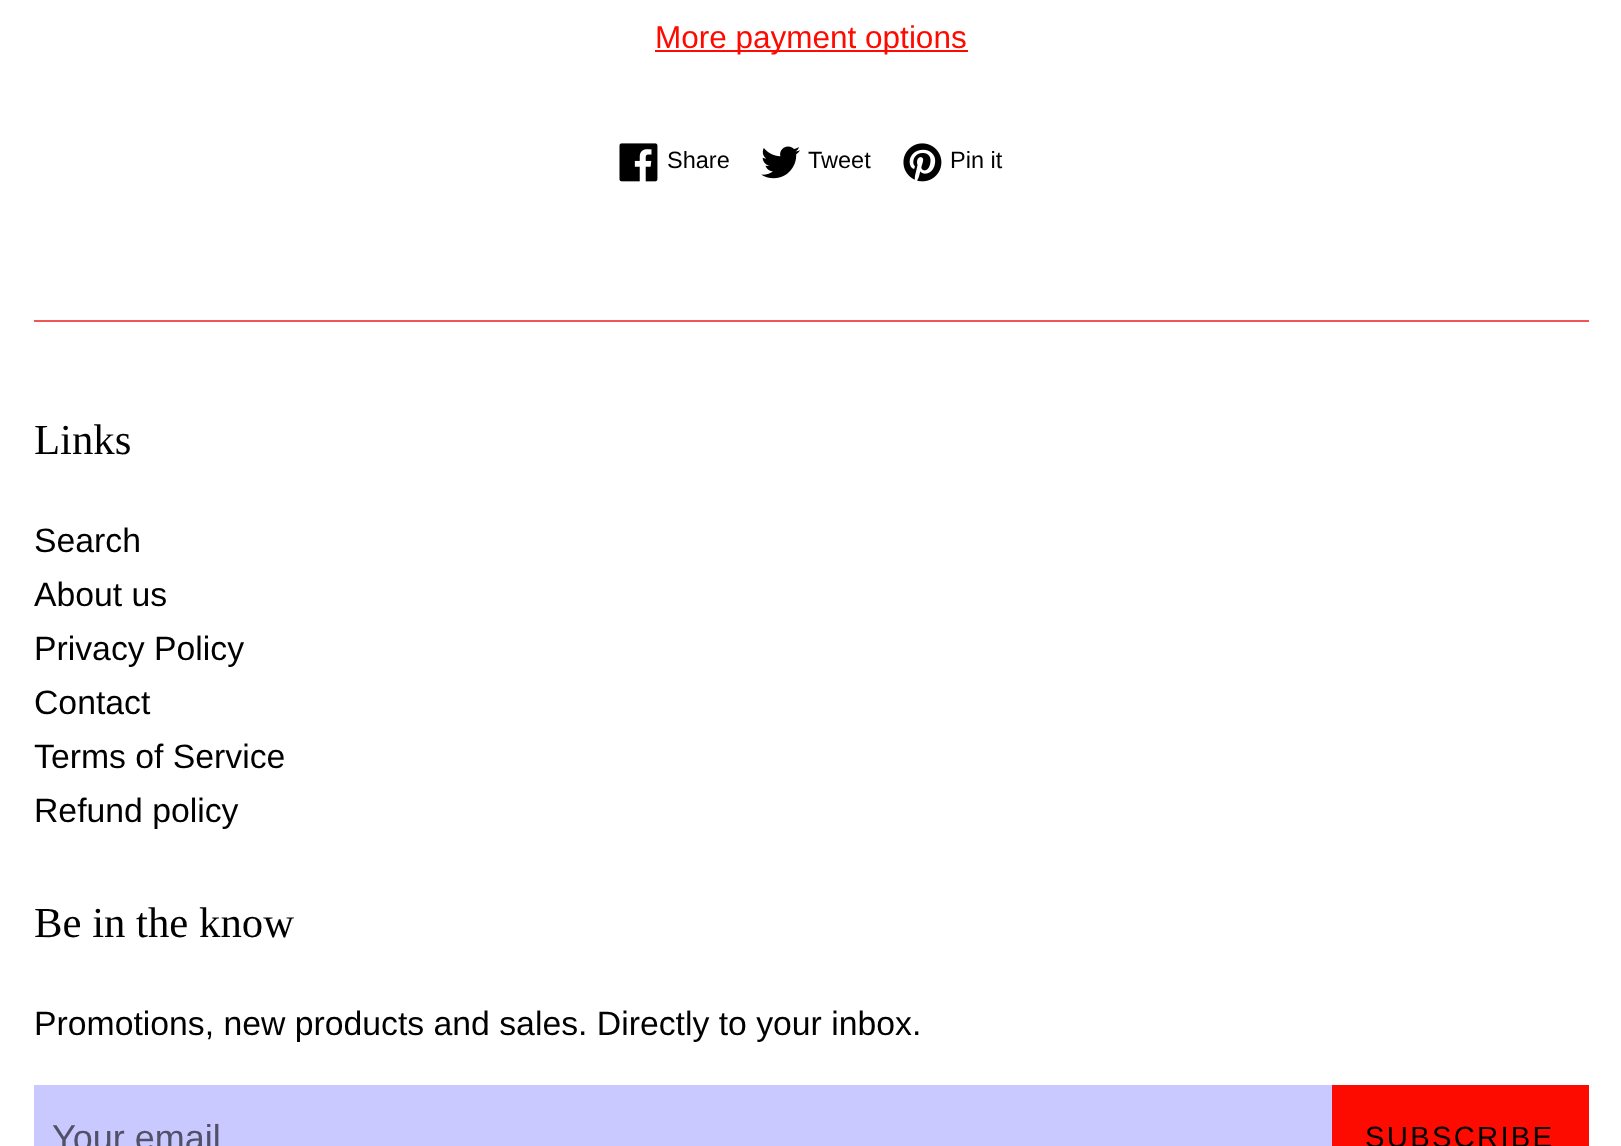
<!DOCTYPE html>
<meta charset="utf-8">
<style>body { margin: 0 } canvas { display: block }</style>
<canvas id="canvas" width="1621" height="1146"></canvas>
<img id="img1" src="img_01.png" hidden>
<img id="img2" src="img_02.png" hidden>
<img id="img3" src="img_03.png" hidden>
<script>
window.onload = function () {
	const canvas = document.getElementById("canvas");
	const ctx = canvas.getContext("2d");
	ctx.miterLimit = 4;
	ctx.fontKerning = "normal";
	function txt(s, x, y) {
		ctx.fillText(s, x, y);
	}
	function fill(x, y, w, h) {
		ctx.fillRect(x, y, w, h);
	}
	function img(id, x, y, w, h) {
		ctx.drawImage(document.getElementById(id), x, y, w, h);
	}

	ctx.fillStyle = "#FFFFFF";
	fill(0, 0, 1621, 1146);
	ctx.fillStyle = "#FD0A00";
	fill(655, 50, 313, 2);
	img("img1", 619, 143, 39, 39);
	img("img2", 761, 146, 39, 33);
	img("img3", 903, 143, 39, 39);
	ctx.fillStyle = "#F35555";
	fill(34, 320, 1555, 2);
	ctx.fillStyle = "#CAC9FF";
	fill(34, 1085, 1298, 61);
	ctx.fillStyle = "#FD0A00";
	fill(1332, 1085, 257, 61);
	ctx.font = "31.5px Liberation Sans";
	txt("More payment options", 655, 48);
	ctx.font = "23.5px Liberation Sans";
	ctx.fillStyle = "#000000";
	txt("Share", 667, 168);
	txt("Tweet", 808, 168);
	txt("Pin it", 950, 168);
	ctx.font = "42.75px Liberation Serif";
	txt("Links", 34, 454);
	ctx.font = "33.75px Liberation Sans";
	txt("Search", 34, 552);
	txt("About us", 34, 606);
	txt("Privacy Policy", 34, 660);
	txt("Contact", 34, 714);
	txt("Terms of Service", 34, 768);
	txt("Refund policy", 34, 822);
	ctx.font = "42.75px Liberation Serif";
	txt("Be in the know", 34, 937);
	ctx.font = "33.75px Liberation Sans";
	txt("Promotions, new products and sales. Directly to your inbox.", 34, 1035);
	ctx.font = "36px Liberation Sans";
	ctx.fillStyle = "#515066";
	txt("Your email", 52, 1150);
	ctx.letterSpacing = "2.25px";
	ctx.font = "29.25px Liberation Sans";
	ctx.fillStyle = "#000000";
	txt("SUBSCRIBE", 1365, 1147);
};
</script>
